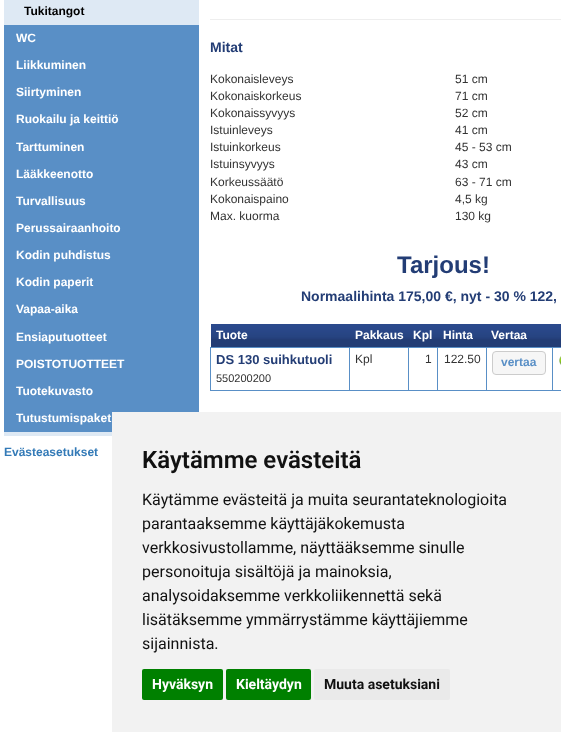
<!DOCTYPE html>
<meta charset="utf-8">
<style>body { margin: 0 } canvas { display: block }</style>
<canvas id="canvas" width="561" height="732"></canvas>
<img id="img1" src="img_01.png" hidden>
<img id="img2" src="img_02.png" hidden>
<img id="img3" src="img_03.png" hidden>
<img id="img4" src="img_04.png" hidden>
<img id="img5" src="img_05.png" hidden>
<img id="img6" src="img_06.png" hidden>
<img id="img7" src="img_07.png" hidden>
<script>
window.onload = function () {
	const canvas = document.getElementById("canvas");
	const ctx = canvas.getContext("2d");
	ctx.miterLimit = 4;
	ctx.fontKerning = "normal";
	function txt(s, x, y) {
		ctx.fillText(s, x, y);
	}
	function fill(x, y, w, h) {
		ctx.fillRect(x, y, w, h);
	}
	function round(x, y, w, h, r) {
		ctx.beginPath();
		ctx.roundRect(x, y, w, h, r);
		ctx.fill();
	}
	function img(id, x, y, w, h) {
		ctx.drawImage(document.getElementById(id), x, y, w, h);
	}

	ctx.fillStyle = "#FFFFFF";
	fill(0, 0, 561, 732);
	ctx.fillStyle = "#DEE9F4";
	fill(4, 0, 195, 436);
	ctx.fillStyle = "#598FC6";
	fill(4, 25, 195, 407);
	ctx.fillStyle = "#EEEEEE";
	fill(210, 19, 351, 1);
	ctx.fillStyle = "#233D75";
	fill(211, 339, 342, 8);
	img("img1", 211, 324, 139, 15);
	img("img2", 350, 324, 58, 15);
	img("img3", 408, 324, 30, 15);
	img("img4", 438, 324, 48, 15);
	img("img5", 486, 324, 67, 15);
	fill(553, 339, 8, 9);
	img("img6", 553, 324, 8, 15);
	ctx.fillStyle = "#598FC6";
	fill(552, 347, 9, 1);
	fill(552, 390, 9, 1);
	fill(552, 347, 1, 44);
	fill(486, 347, 67, 1);
	fill(486, 390, 67, 1);
	fill(486, 347, 1, 44);
	fill(437, 347, 50, 1);
	fill(437, 390, 50, 1);
	fill(437, 347, 1, 44);
	fill(408, 347, 30, 1);
	fill(408, 390, 30, 1);
	fill(408, 347, 1, 44);
	fill(349, 347, 60, 1);
	fill(349, 390, 60, 1);
	fill(349, 347, 1, 44);
	fill(210, 347, 140, 1);
	fill(210, 390, 140, 1);
	fill(210, 347, 1, 44);
	ctx.fillStyle = "#F6F6F6";
	ctx.beginPath();
	ctx.roundRect(492.5, 351.5, 53, 23, 3.5);
	ctx.fill();
	ctx.strokeStyle = "#CCCCCC";
	ctx.stroke();
	img("img7", 559, 356, 2, 9);
	ctx.fillStyle = "#F2F2F2";
	fill(112, 412, 449, 320);
	ctx.fillStyle = "#008000";
	round(142, 669, 81, 31, 2);
	round(226, 669, 85, 31, 2);
	ctx.fillStyle = "#EAEAEA";
	round(314, 669, 136, 31, 2);
	ctx.font = "bold 12px Liberation Sans";
	ctx.fillStyle = "#000000";
	txt("Tukitangot", 24, 15);
	ctx.fillStyle = "#FFFFFF";
	txt("WC", 16, 42);
	txt("Liikkuminen", 16, 69);
	txt("Siirtyminen", 16, 96);
	txt("Ruokailu ja keittiö", 16, 123);
	txt("Tarttuminen", 16, 151);
	txt("Lääkkeenotto", 16, 178);
	txt("Turvallisuus", 16, 205);
	txt("Perussairaanhoito", 16, 232);
	txt("Kodin puhdistus", 16, 259);
	txt("Kodin paperit", 16, 286);
	txt("Vapaa-aika", 16, 313);
	txt("Ensiaputuotteet", 16, 341);
	txt("POISTOTUOTTEET", 16, 368);
	txt("Tuotekuvasto", 16, 395);
	txt("Tutustumispaket", 16, 422);
	ctx.fillStyle = "#337AB7";
	txt("Evästeasetukset", 4, 456);
	ctx.font = "bold 14px Liberation Sans";
	ctx.fillStyle = "#233D75";
	txt("Mitat", 210, 52);
	ctx.font = "12px Liberation Sans";
	ctx.fillStyle = "#333333";
	txt("Kokonaisleveys", 210, 83);
	txt("51 cm", 455, 83);
	txt("Kokonaiskorkeus", 210, 100);
	txt("71 cm", 455, 100);
	txt("Kokonaissyvyys", 210, 117);
	txt("52 cm", 455, 117);
	txt("Istuinleveys", 210, 134);
	txt("41 cm", 455, 134);
	txt("Istuinkorkeus", 210, 151);
	txt("45 - 53 cm", 455, 151);
	txt("Istuinsyvyys", 210, 168);
	txt("43 cm", 455, 168);
	txt("Korkeussäätö", 210, 186);
	txt("63 - 71 cm", 455, 186);
	txt("Kokonaispaino", 210, 203);
	txt("4,5 kg", 455, 203);
	txt("Max. kuorma", 210, 220);
	txt("130 kg", 455, 220);
	ctx.font = "bold 24px Liberation Sans";
	ctx.fillStyle = "#233D75";
	txt("Tarjous!", 397, 273);
	ctx.font = "bold 14px Liberation Sans";
	txt("Normaalihinta 175,00 €, nyt - 30 % 122,", 301, 301);
	ctx.font = "bold 12px Liberation Sans";
	ctx.fillStyle = "#FFFFFF";
	txt("Tuote", 216, 339);
	txt("Pakkaus", 355, 339);
	txt("Kpl", 413, 339);
	txt("Hinta", 443, 339);
	txt("Vertaa", 491, 339);
	ctx.font = "bold 13px Liberation Sans";
	ctx.fillStyle = "#233D75";
	txt("DS 130 suihkutuoli", 216, 364);
	ctx.font = "11px Liberation Sans";
	ctx.fillStyle = "#333333";
	txt("550200200", 216, 382);
	ctx.font = "12px Liberation Sans";
	txt("Kpl", 355, 363);
	txt("1", 425, 363);
	txt("122.50", 444, 363);
	ctx.font = "bold 12px Liberation Sans";
	ctx.fillStyle = "#598FC6";
	txt("vertaa", 501, 366);
	ctx.font = "600 24px Roboto";
	ctx.fillStyle = "#111111";
	txt("Käytämme evästeitä", 142, 468);
	ctx.font = "16px Roboto";
	txt("Käytämme evästeitä ja muita seurantateknologioita", 142, 505);
	txt("parantaaksemme käyttäjäkokemusta", 142, 529);
	txt("verkkosivustollamme, näyttääksemme sinulle", 142, 553);
	txt("personoituja sisältöjä ja mainoksia,", 142, 577);
	txt("analysoidaksemme verkkoliikennettä sekä", 142, 601);
	txt("lisätäksemme ymmärrystämme käyttäjiemme", 142, 625);
	txt("sijainnista.", 142, 649);
	ctx.font = "bold 14px Roboto";
	ctx.fillStyle = "#FFFFFF";
	txt("Hyväksyn", 152, 689);
	txt("Kieltäydyn", 236, 689);
	ctx.fillStyle = "#111111";
	txt("Muuta asetuksiani", 324, 689);
};
</script>
